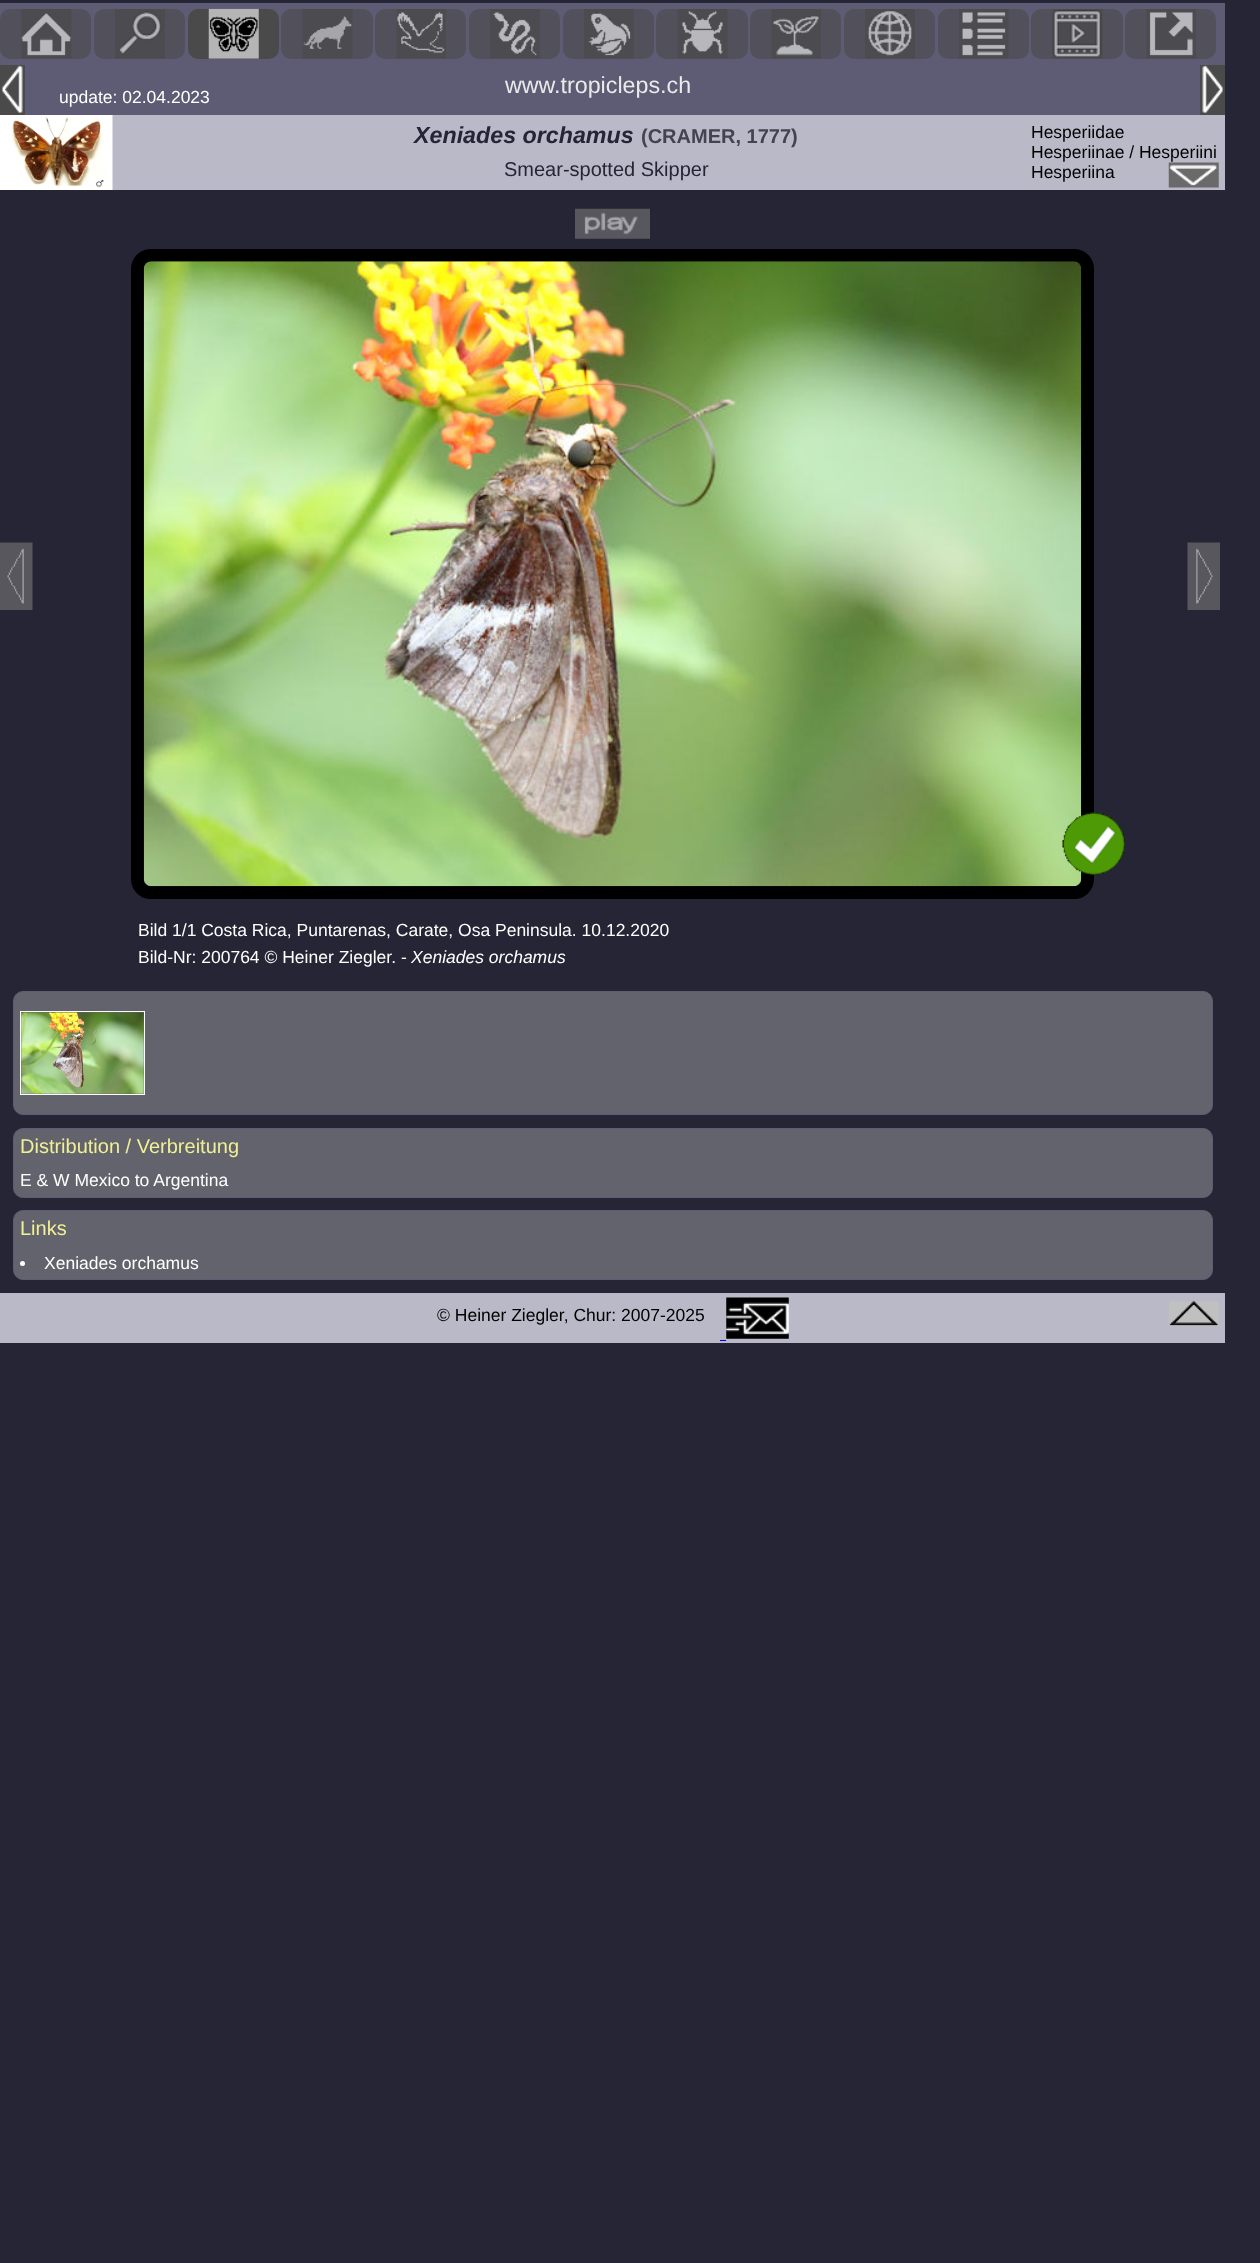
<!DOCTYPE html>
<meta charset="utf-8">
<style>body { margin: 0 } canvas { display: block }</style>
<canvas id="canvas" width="1260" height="2263"></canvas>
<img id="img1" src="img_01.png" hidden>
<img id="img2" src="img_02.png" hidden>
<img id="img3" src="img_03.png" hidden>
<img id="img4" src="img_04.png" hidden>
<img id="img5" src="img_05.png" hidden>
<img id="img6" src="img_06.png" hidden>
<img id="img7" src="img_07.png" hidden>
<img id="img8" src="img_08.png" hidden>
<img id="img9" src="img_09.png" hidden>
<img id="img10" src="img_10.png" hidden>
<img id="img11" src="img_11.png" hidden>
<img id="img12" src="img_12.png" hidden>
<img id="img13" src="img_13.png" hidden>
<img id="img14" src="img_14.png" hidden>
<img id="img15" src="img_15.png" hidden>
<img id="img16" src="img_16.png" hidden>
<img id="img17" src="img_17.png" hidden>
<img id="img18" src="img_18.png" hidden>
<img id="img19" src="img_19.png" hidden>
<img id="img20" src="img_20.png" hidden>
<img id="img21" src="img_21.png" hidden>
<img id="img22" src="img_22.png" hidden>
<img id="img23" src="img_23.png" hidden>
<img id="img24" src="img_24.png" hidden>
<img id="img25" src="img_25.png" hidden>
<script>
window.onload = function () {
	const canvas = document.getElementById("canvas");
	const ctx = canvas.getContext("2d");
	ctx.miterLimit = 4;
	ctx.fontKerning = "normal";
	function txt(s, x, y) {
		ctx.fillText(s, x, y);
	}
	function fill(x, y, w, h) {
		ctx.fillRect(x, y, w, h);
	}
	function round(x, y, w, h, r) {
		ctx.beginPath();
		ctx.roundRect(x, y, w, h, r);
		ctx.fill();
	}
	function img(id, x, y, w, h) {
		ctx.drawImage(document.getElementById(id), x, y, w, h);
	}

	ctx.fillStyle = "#262535";
	fill(0, 0, 1260, 2263);
	ctx.fillStyle = "#5D5C74";
	fill(0, 3, 1225, 62);
	ctx.fillStyle = "#52515B";
	round(0, 9, 91, 50, 10);
	img("img1", 21, 9, 51, 50);
	round(94, 9, 91, 50, 10);
	img("img2", 115, 9, 50, 50);
	ctx.fillStyle = "#4A4A4A";
	round(188, 9, 91, 50, 10);
	img("img3", 208, 8, 51, 51);
	ctx.fillStyle = "#52515B";
	round(281, 9, 92, 50, 10);
	img("img4", 302, 9, 51, 50);
	round(375, 9, 91, 50, 10);
	img("img5", 396, 9, 50, 50);
	round(469, 9, 91, 50, 10);
	img("img6", 490, 9, 50, 50);
	round(563, 9, 91, 50, 10);
	img("img7", 584, 9, 50, 50);
	round(656, 9, 92, 50, 10);
	img("img8", 677, 9, 51, 50);
	round(750, 9, 91, 50, 10);
	img("img9", 771, 9, 50, 50);
	round(844, 9, 91, 50, 10);
	img("img10", 865, 9, 50, 50);
	round(938, 9, 91, 50, 10);
	img("img11", 959, 9, 50, 50);
	round(1031, 9, 92, 50, 10);
	img("img12", 1052, 9, 51, 50);
	round(1125, 9, 91, 50, 10);
	img("img13", 1146, 9, 50, 50);
	ctx.fillStyle = "#5D5C74";
	fill(25, 65, 1175, 50);
	img("img14", 0, 65, 25, 50);
	img("img15", 1200, 65, 25, 50);
	ctx.fillStyle = "#BAB9C7";
	fill(112, 115, 1113, 75);
	img("img16", 0, 115, 113, 75);
	img("img17", 1168, 162, 51, 26);
	img("img18", 575, 208, 75, 31);
	img("img19", 0, 542, 33, 68);
	ctx.beginPath();
	ctx.roundRect(137.5, 255.5, 950, 637, 13.5);
	ctx.strokeStyle = "#000000";
	ctx.lineWidth = 13;
	ctx.stroke();
	img("img20", 143, 261, 939, 626);
	img("img21", 1187, 542, 33, 68);
	img("img22", 1062, 812, 63, 63);
	ctx.fillStyle = "#63636D";
	ctx.beginPath();
	ctx.roundRect(13.5, 991.5, 1199, 123, 9.5);
	ctx.fill();
	ctx.strokeStyle = "#5D5C74";
	ctx.lineWidth = 1;
	ctx.stroke();
	ctx.strokeStyle = "#FFFFFF";
	ctx.strokeRect(20.5, 1011.5, 124, 83);
	img("img23", 21, 1012, 123, 82);
	ctx.beginPath();
	ctx.roundRect(13.5, 1128.5, 1199, 69, 9.5);
	ctx.fill();
	ctx.strokeStyle = "#5D5C74";
	ctx.stroke();
	ctx.beginPath();
	ctx.roundRect(13.5, 1210.5, 1199, 69, 9.5);
	ctx.fill();
	ctx.stroke();
	ctx.fillStyle = "#FFFFFF";
	ctx.beginPath();
	ctx.arc(22.5, 1263.5, 2.5, 0, Math.PI * 2);
	ctx.fill();
	ctx.fillStyle = "#BAB9C7";
	fill(0, 1293, 1225, 50);
	ctx.fillStyle = "#0000EE";
	fill(720, 1340, 6, 1);
	img("img24", 726, 1297, 63, 42);
	img("img25", 1169, 1301, 50, 25);
	ctx.font = "17.5px Liberation Sans";
	ctx.fillStyle = "#FFFFFF";
	txt("update: 02.04.2023", 59, 103);
	ctx.font = "23.25px Liberation Sans";
	ctx.fillStyle = "#EAEAEA";
	txt("www.tropicleps.ch", 505, 93);
	ctx.font = "italic bold 23.25px Liberation Sans";
	ctx.fillStyle = "#262535";
	txt("Xeniades orchamus", 414, 143);
	ctx.font = "bold 20px Liberation Sans";
	ctx.fillStyle = "#444352";
	txt("(CRAMER, 1777)", 641, 143);
	ctx.font = "17.5px Liberation Sans";
	ctx.fillStyle = "#000000";
	txt("Hesperiidae", 1031, 138);
	txt("Hesperiinae / Hesperiini", 1031, 158);
	txt("Hesperiina", 1031, 178);
	ctx.font = "20px Liberation Sans";
	ctx.fillStyle = "#262535";
	txt("Smear-spotted Skipper", 504, 176);
	ctx.font = "17.5px Liberation Sans";
	ctx.fillStyle = "#FFFFFF";
	txt("Bild 1/1 Costa Rica, Puntarenas, Carate, Osa Peninsula. 10.12.2020", 138, 936);
	txt("Bild-Nr: 200764 © Heiner Ziegler. -", 138, 963);
	ctx.font = "italic 17.5px Liberation Sans";
	txt("Xeniades orchamus", 411, 963);
	ctx.font = "20px Liberation Sans";
	ctx.fillStyle = "#F1F095";
	txt("Distribution / Verbreitung", 20, 1153);
	ctx.font = "17.5px Liberation Sans";
	ctx.fillStyle = "#FFFFFF";
	txt("E & W Mexico to Argentina", 20, 1186);
	ctx.font = "20px Liberation Sans";
	ctx.fillStyle = "#F1F095";
	txt("Links", 20, 1235);
	ctx.font = "17.5px Liberation Sans";
	ctx.fillStyle = "#FFFFFF";
	txt("Xeniades orchamus", 44, 1269);
	ctx.fillStyle = "#000000";
	txt("© Heiner Ziegler, Chur: 2007-2025", 437, 1321);
};
</script>
